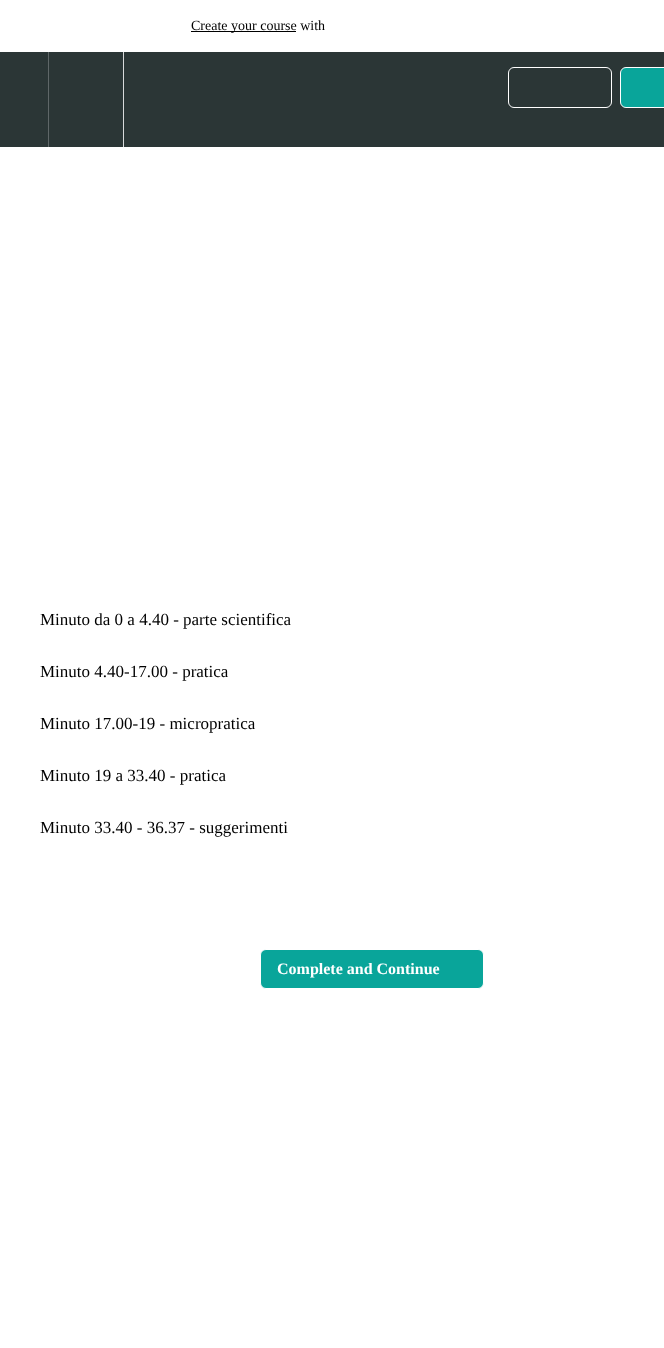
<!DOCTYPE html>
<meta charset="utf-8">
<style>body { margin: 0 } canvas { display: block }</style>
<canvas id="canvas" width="664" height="1348"></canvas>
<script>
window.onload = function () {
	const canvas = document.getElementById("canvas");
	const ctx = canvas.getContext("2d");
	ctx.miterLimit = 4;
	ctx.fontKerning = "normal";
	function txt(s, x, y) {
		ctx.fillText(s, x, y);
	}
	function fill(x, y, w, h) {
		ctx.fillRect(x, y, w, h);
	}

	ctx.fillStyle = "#FFFFFF";
	fill(0, 0, 664, 1348);
	ctx.fillStyle = "#2B3636";
	fill(0, 52, 664, 95);
	ctx.fillStyle = "#000000";
	fill(191, 31, 105, 1);
	ctx.fillStyle = "#D7DADB";
	fill(123, 52, 1, 95);
	ctx.fillStyle = "#5F6768";
	fill(48, 52, 1, 95);
	ctx.beginPath();
	ctx.roundRect(508.5, 67.5, 103, 40, 5.5);
	ctx.strokeStyle = "#FFFFFF";
	ctx.stroke();
	ctx.fillStyle = "#09A59A";
	ctx.beginPath();
	ctx.roundRect(620.5, 67.5, 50, 40, 5.5);
	ctx.fill();
	ctx.stroke();
	ctx.beginPath();
	ctx.roundRect(260.5, 949.5, 223, 39, 5.5);
	ctx.fill();
	ctx.stroke();
	ctx.font = "14px Liberation Serif";
	ctx.fillStyle = "#000000";
	txt("Create your course with", 191, 30);
	ctx.font = "17px Liberation Serif";
	txt("Minuto da 0 a 4.40 - parte scientifica", 40, 625);
	txt("Minuto 4.40-17.00 - pratica", 40, 677);
	txt("Minuto 17.00-19 - micropratica", 40, 729);
	txt("Minuto 19 a 33.40 - pratica", 40, 781);
	txt("Minuto 33.40 - 36.37 - suggerimenti", 40, 833);
	ctx.font = "bold 16px Liberation Serif";
	ctx.fillStyle = "#FFFFFF";
	txt("Complete and Continue", 277, 974);
};
</script>
